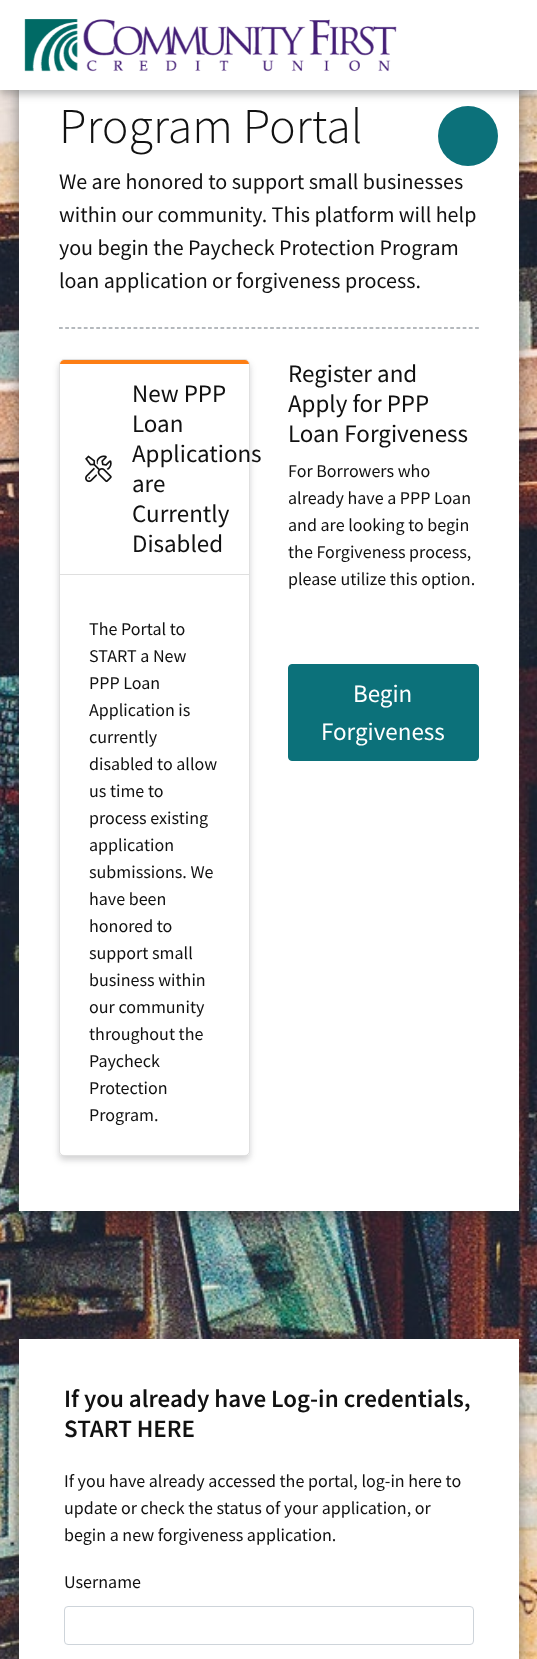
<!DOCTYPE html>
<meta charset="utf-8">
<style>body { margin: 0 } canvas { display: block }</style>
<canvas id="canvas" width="537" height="1659"></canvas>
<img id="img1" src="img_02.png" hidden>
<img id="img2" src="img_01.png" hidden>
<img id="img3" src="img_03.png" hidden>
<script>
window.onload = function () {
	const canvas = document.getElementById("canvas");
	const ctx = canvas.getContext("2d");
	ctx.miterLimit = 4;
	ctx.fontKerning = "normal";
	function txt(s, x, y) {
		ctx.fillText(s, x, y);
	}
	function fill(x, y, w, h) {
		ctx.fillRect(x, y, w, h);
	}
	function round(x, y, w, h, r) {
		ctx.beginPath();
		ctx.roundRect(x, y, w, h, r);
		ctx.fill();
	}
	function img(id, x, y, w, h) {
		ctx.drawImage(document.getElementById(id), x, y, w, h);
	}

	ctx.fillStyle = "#FFFFFF";
	fill(0, 0, 537, 1659);
	img("img1", 0, 90, 537, 1569);
	ctx.fillStyle = "rgba(33, 37, 41, 0.5)";
	ctx.filter = "blur(7.5px)";
	ctx.beginPath();
	ctx.rect(19, -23, 500, 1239);
	ctx.fill();
	ctx.filter = "none";
	ctx.fillStyle = "#FFFFFF";
	fill(19, 90, 500, 1121);
	ctx.fillStyle = "rgba(33, 37, 41, 0.3)";
	ctx.filter = "blur(4.5px)";
	ctx.beginPath();
	ctx.rect(0, 4, 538, 90);
	ctx.fill();
	ctx.filter = "none";
	ctx.fillStyle = "#FFFFFF";
	fill(0, 0, 537, 90);
	img("img2", 24, 19, 373, 53);
	ctx.fillStyle = "#0C717A";
	ctx.beginPath();
	ctx.arc(468, 136, 30, 0, Math.PI * 2);
	ctx.fill();
	ctx.beginPath();
	ctx.moveTo(59, 328);
	ctx.lineTo(479, 328);
	ctx.strokeStyle = "#6C757D";
	ctx.lineWidth = 1.2;
	ctx.setLineDash([3.75, 2.46]);
	ctx.stroke();
	ctx.fillStyle = "rgba(33, 37, 41, 0.2)";
	ctx.filter = "blur(3px)";
	ctx.beginPath();
	ctx.roundRect(59, 363, 191, 797, 5);
	ctx.fill();
	ctx.filter = "none";
	ctx.fillStyle = "#FFFFFF";
	round(59, 359, 191, 797, 5);
	ctx.beginPath();
	ctx.roundRect(59.5, 359.5, 190, 796, 4.5);
	ctx.strokeStyle = "rgba(0, 0, 0, 0.12)";
	ctx.lineWidth = 1;
	ctx.setLineDash([]);
	ctx.stroke();
	ctx.beginPath();
	ctx.roundRect(60, 360, 189, 215, [4, 4, 0, 0]);
	ctx.fill();
	ctx.fillStyle = "#FD7E14";
	ctx.beginPath();
	ctx.moveTo(64, 360);
	ctx.bezierCurveTo(62, 360, 60, 362, 60, 364);
	ctx.lineTo(249, 364);
	ctx.bezierCurveTo(249, 362, 247, 360, 245, 360);
	ctx.closePath();
	ctx.fill();
	ctx.fillStyle = "#DFDFDF";
	fill(60, 574, 189, 1);
	img("img3", 85, 455, 27, 28);
	ctx.fillStyle = "#0C717A";
	ctx.beginPath();
	ctx.roundRect(288.5, 664.5, 190, 96, 3.5);
	ctx.fill();
	ctx.strokeStyle = "#0C717A";
	ctx.stroke();
	ctx.fillStyle = "rgba(33, 37, 41, 0.5)";
	ctx.filter = "blur(7.5px)";
	ctx.beginPath();
	ctx.rect(19, 1344, 500, 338);
	ctx.fill();
	ctx.filter = "none";
	ctx.fillStyle = "#FFFFFF";
	fill(19, 1339, 500, 320);
	ctx.beginPath();
	ctx.roundRect(64.5, 1606.5, 409, 38, 3.5);
	ctx.strokeStyle = "#CED4DA";
	ctx.stroke();
	ctx.font = "300 50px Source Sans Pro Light";
	ctx.fillStyle = "#111111";
	txt("Program Portal", 59, 143);
	ctx.font = "22px Source Sans Pro";
	txt("We are honored to support small businesses", 59, 189);
	txt("within our community. This platform will help", 59, 222);
	txt("you begin the Paycheck Protection Program", 59, 255);
	txt("loan application or forgiveness process.", 59, 288);
	ctx.font = "25px Source Sans Pro";
	txt("New PPP", 132, 402);
	txt("Loan", 132, 432);
	txt("Applications", 132, 462);
	txt("are", 132, 492);
	txt("Currently", 132, 522);
	txt("Disabled", 132, 552);
	ctx.font = "18px Source Sans Pro";
	txt("The Portal to", 89, 635);
	txt("START a New", 89, 662);
	txt("PPP Loan", 89, 689);
	txt("Application is", 89, 716);
	txt("currently", 89, 743);
	txt("disabled to allow", 89, 770);
	txt("us time to", 89, 797);
	txt("process existing", 89, 824);
	txt("application", 89, 851);
	txt("submissions. We", 89, 878);
	txt("have been", 89, 905);
	txt("honored to", 89, 932);
	txt("support small", 89, 959);
	txt("business within", 89, 986);
	txt("our community", 89, 1013);
	txt("throughout the", 89, 1040);
	txt("Paycheck", 89, 1067);
	txt("Protection", 89, 1094);
	txt("Program.", 89, 1121);
	ctx.font = "25px Source Sans Pro";
	txt("Register and", 288, 382);
	txt("Apply for PPP", 288, 412);
	txt("Loan Forgiveness", 288, 442);
	ctx.font = "18px Source Sans Pro";
	txt("For Borrowers who", 288, 477);
	txt("already have a PPP Loan", 288, 504);
	txt("and are looking to begin", 288, 531);
	txt("the Forgiveness process,", 288, 558);
	txt("please utilize this option.", 288, 585);
	ctx.font = "25px Source Sans Pro";
	ctx.fillStyle = "#FFFFFF";
	txt("Begin", 353, 702);
	txt("Forgiveness", 321, 740);
	ctx.font = "600 25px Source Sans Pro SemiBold";
	ctx.fillStyle = "#111111";
	txt("If you already have Log-in credentials,", 64, 1407);
	txt("START HERE", 64, 1437);
	ctx.font = "18px Source Sans Pro";
	txt("If you have already accessed the portal, log-in here to", 64, 1487);
	txt("update or check the status of your application, or", 64, 1514);
	txt("begin a new forgiveness application.", 64, 1541);
	txt("Username", 64, 1588);
};
</script>
